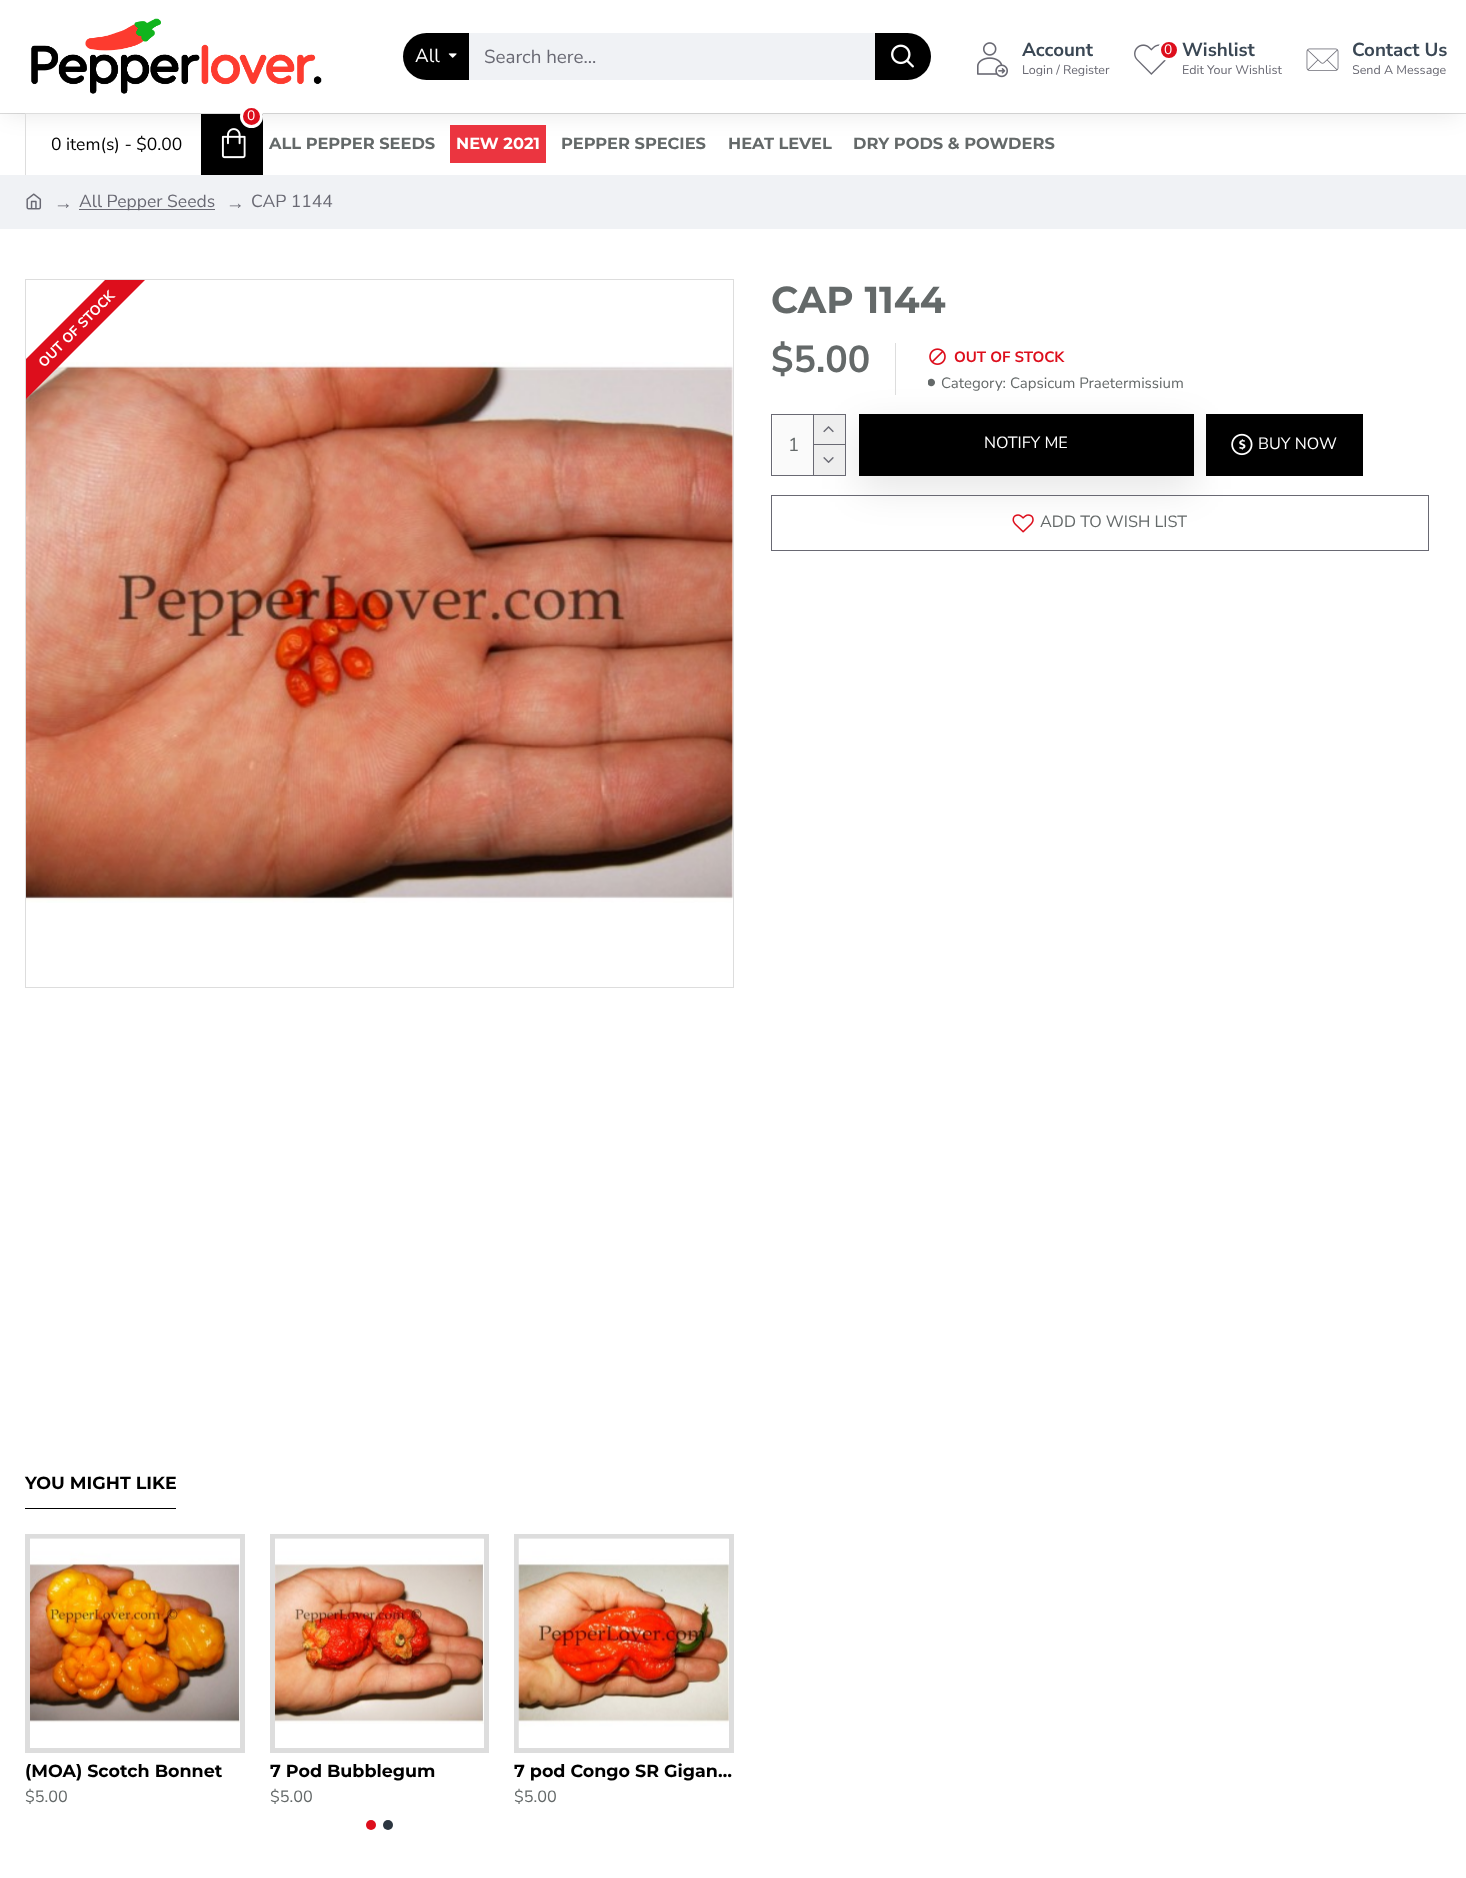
<!DOCTYPE html>
<meta charset="utf-8">
<style>body { margin: 0 } canvas { display: block }</style>
<canvas id="canvas" width="1466" height="1878"></canvas>
<img id="img1" src="img_01.png" hidden>
<img id="img2" src="img_02.png" hidden>
<img id="img3" src="img_03.png" hidden>
<img id="img4" src="img_04.png" hidden>
<img id="img5" src="img_05.png" hidden>
<img id="img6" src="img_06.png" hidden>
<img id="img7" src="img_07.png" hidden>
<img id="img8" src="img_08.png" hidden>
<img id="img9" src="img_09.png" hidden>
<img id="img10" src="img_10.png" hidden>
<img id="img11" src="img_11.png" hidden>
<img id="img12" src="img_12.png" hidden>
<img id="img13" src="img_13.png" hidden>
<img id="img14" src="img_14.png" hidden>
<img id="img15" src="img_15.png" hidden>
<img id="img16" src="img_16.png" hidden>
<img id="img17" src="img_17.png" hidden>
<img id="img18" src="img_18.png" hidden>
<script>
window.onload = function () {
	const canvas = document.getElementById("canvas");
	const ctx = canvas.getContext("2d");
	ctx.miterLimit = 4;
	ctx.fontKerning = "normal";
	function txt(s, x, y) {
		ctx.fillText(s, x, y);
	}
	function fill(x, y, w, h) {
		ctx.fillRect(x, y, w, h);
	}
	function img(id, x, y, w, h) {
		ctx.drawImage(document.getElementById(id), x, y, w, h);
	}

	ctx.fillStyle = "#FFFFFF";
	fill(0, 0, 1466, 1878);
	ctx.fillStyle = "#DDDDDD";
	fill(0, 113, 1466, 1);
	ctx.save();
	ctx.beginPath();
	ctx.moveTo(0, 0);
	ctx.lineTo(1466, 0);
	ctx.lineTo(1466, 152);
	ctx.lineTo(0, 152);
	ctx.closePath();
	ctx.moveTo(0, 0);
	ctx.lineTo(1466, 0);
	ctx.lineTo(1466, 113);
	ctx.lineTo(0, 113);
	ctx.closePath();
	ctx.clip("evenodd");
	ctx.fillStyle = "rgba(0, 0, 0, 0.1)";
	ctx.filter = "blur(12.5px)";
	ctx.beginPath();
	ctx.rect(6, 13, 1454, 100);
	ctx.fill();
	ctx.filter = "none";
	ctx.restore();
	img("img1", 31, 18, 291, 76);
	ctx.fillStyle = "#000000";
	ctx.beginPath();
	ctx.roundRect(403, 33, 66, 47, [23.5, 0, 0, 23.5]);
	ctx.fill();
	img("img2", 448, 53, 9, 5);
	ctx.fillStyle = "#F0F2F5";
	fill(469, 33, 406, 47);
	ctx.fillStyle = "#000000";
	ctx.beginPath();
	ctx.roundRect(875, 33, 56, 47, [0, 23.5, 23.5, 0]);
	ctx.fill();
	img("img3", 891, 44, 23, 24);
	img("img4", 977, 42, 31, 36);
	img("img5", 1134, 44, 33, 31);
	ctx.fillStyle = "#DD0E1C";
	ctx.beginPath();
	ctx.arc(1169, 50, 9.5, 0, Math.PI * 2);
	ctx.fill();
	ctx.strokeStyle = "#FFFFFF";
	ctx.lineWidth = 3;
	ctx.stroke();
	img("img6", 1306, 48, 33, 23);
	ctx.fillStyle = "#DDDDDD";
	fill(25, 113, 238, 1);
	fill(25, 113, 1, 62);
	ctx.fillStyle = "#000000";
	fill(201, 114, 62, 61);
	ctx.fillStyle = "#DD0E1C";
	ctx.beginPath();
	ctx.arc(251.5, 116.5, 10, 0, Math.PI * 2);
	ctx.fill();
	ctx.stroke();
	img("img7", 221, 128, 25, 31);
	ctx.fillStyle = "#EB3540";
	fill(450, 125, 96, 38);
	ctx.fillStyle = "#F0F2F5";
	fill(0, 175, 1466, 54);
	img("img8", 26, 193, 16, 17);
	ctx.fillStyle = "#696973";
	fill(79, 209, 136, 1);
	ctx.strokeStyle = "#DDDDDD";
	ctx.lineWidth = 1;
	ctx.strokeRect(25.5, 279.5, 708, 708);
	img("img9", 26, 362, 707, 541);
	ctx.save();
	ctx.beginPath();
	ctx.rect(26, 280, 707, 706);
	ctx.clip();
	ctx.fillStyle = "#DD0E1C";
	ctx.beginPath();
	ctx.moveTo(-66, 451);
	ctx.lineTo(199, 186);
	ctx.lineTo(219, 206);
	ctx.lineTo(-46, 471);
	ctx.closePath();
	ctx.fill();
	ctx.restore();
	ctx.fillStyle = "rgba(0, 0, 0, 0.1)";
	ctx.filter = "blur(19px)";
	ctx.beginPath();
	ctx.rect(859, 426, 335, 63);
	ctx.fill();
	ctx.filter = "none";
	ctx.fillStyle = "#DDDDDD";
	fill(895, 343, 1, 52);
	img("img10", 929, 348, 17, 17);
	img("img11", 928, 378, 7, 9);
	ctx.strokeStyle = "#696973";
	ctx.strokeRect(771.5, 414.5, 74, 61);
	ctx.fillStyle = "#FAFAFA";
	fill(773, 415, 40, 60);
	ctx.fillStyle = "#696973";
	fill(813, 415, 1, 60);
	ctx.fillStyle = "#EEEEEE";
	fill(814, 415, 31, 29);
	ctx.fillStyle = "#696973";
	fill(814, 444, 31, 1);
	img("img12", 823, 426, 11, 7);
	ctx.fillStyle = "#EEEEEE";
	fill(814, 445, 31, 30);
	img("img13", 823, 457, 11, 6);
	ctx.fillStyle = "#000000";
	fill(859, 414, 335, 62);
	fill(1206, 414, 157, 62);
	img("img14", 1231, 433, 22, 23);
	ctx.strokeRect(771.5, 495.5, 657, 55);
	img("img15", 1012, 514, 22, 19);
	fill(25, 1508, 151, 1);
	ctx.strokeStyle = "#DDDDDD";
	ctx.lineWidth = 5;
	ctx.strokeRect(27.5, 1536.5, 215, 214);
	img("img16", 30, 1538, 210, 185);
	ctx.strokeRect(272.5, 1536.5, 214, 214);
	img("img17", 275, 1538, 209, 186);
	ctx.strokeRect(516.5, 1536.5, 215, 214);
	img("img18", 518, 1538, 211, 210);
	ctx.fillStyle = "#DD0E1C";
	ctx.beginPath();
	ctx.arc(371, 1825, 5, 0, Math.PI * 2);
	ctx.fill();
	ctx.fillStyle = "#2C3640";
	ctx.beginPath();
	ctx.arc(388, 1825, 5, 0, Math.PI * 2);
	ctx.fill();
	ctx.font = "18.75px Nunito Sans";
	ctx.fillStyle = "#FFFFFF";
	txt("All", 415, 62);
	ctx.fillStyle = "#696973";
	txt("Search here...", 484, 63);
	ctx.font = "bold 18.75px Nunito Sans";
	ctx.fillStyle = "#3A4754";
	txt("Account", 1022, 56);
	ctx.save();
	ctx.beginPath();
	ctx.rect(1023, 36, 87, 40);
	ctx.clip();
	ctx.font = "12.5px Nunito Sans";
	ctx.fillStyle = "#696973";
	txt("Login / Register", 1022, 74);
	ctx.restore();
	ctx.font = "13.75px Nunito Sans";
	ctx.fillStyle = "#FFFFFF";
	txt("0", 1164, 54);
	ctx.font = "bold 18.75px Nunito Sans";
	ctx.fillStyle = "#3A4754";
	txt("Wishlist", 1182, 56);
	ctx.font = "12.5px Nunito Sans";
	ctx.fillStyle = "#696973";
	txt("Edit Your Wishlist", 1182, 74);
	ctx.font = "bold 18.75px Nunito Sans";
	ctx.fillStyle = "#3A4754";
	txt("Contact Us", 1352, 56);
	ctx.save();
	ctx.beginPath();
	ctx.rect(1353, 36, 95, 40);
	ctx.clip();
	ctx.font = "12.5px Nunito Sans";
	ctx.fillStyle = "#696973";
	txt("Send A Message", 1352, 74);
	ctx.restore();
	ctx.font = "13.75px Nunito Sans";
	ctx.fillStyle = "#FFFFFF";
	txt("0", 247, 120);
	ctx.font = "17.5px Nunito Sans";
	ctx.fillStyle = "#000000";
	txt("0 item(s) - $0.00", 51, 150);
	ctx.font = "bold 16.25px Montserrat";
	ctx.fillStyle = "#646969";
	txt("ALL PEPPER SEEDS", 269, 149);
	ctx.fillStyle = "#FFFFFF";
	txt("NEW 2021", 456, 149);
	ctx.fillStyle = "#646969";
	txt("PEPPER SPECIES", 561, 149);
	txt("HEAT LEVEL", 728, 149);
	txt("DRY PODS & POWDERS", 853, 149);
	ctx.font = "18.75px Liberation Serif";
	ctx.fillStyle = "#696973";
	txt("→", 54, 209);
	ctx.font = "17.5px Nunito Sans";
	txt("All Pepper Seeds", 79, 207);
	ctx.font = "18.75px Liberation Serif";
	txt("→", 226, 209);
	ctx.font = "17.5px Nunito Sans";
	txt("CAP 1144", 251, 207);
	ctx.font = "bold 13.75px Nunito Sans";
	ctx.fillStyle = "#FFFFFF";
	ctx.save();
	ctx.translate(44, 368);
	ctx.rotate(-45 * Math.PI / 180);
	ctx.fillText("OUT OF STOCK", 0, 0);
	ctx.restore();
	ctx.font = "bold 37.5px Montserrat";
	ctx.fillStyle = "#646969";
	txt("CAP 1144", 771, 313);
	ctx.font = "bold 37.5px Nunito Sans";
	txt("$5.00", 771, 372);
	ctx.font = "bold 15px Nunito Sans";
	ctx.fillStyle = "#DD0E1C";
	txt("OUT OF STOCK", 954, 362);
	ctx.font = "15px Nunito Sans";
	ctx.fillStyle = "#646969";
	txt("Category: Capsicum Praetermissium", 941, 388);
	ctx.font = "18.75px Nunito Sans";
	txt("1", 788, 451);
	ctx.font = "16.25px Nunito Sans";
	ctx.fillStyle = "#FFFFFF";
	txt("NOTIFY ME", 984, 448);
	txt("BUY NOW", 1258, 449);
	ctx.fillStyle = "#646969";
	txt("ADD TO WISH LIST", 1040, 527);
	ctx.font = "bold 17.5px Montserrat";
	ctx.fillStyle = "#000000";
	txt("YOU MIGHT LIKE", 25, 1489);
	txt("(MOA) Scotch Bonnet", 25, 1777);
	ctx.font = "16.25px Nunito Sans";
	ctx.fillStyle = "#646969";
	txt("$5.00", 25, 1802);
	ctx.font = "bold 17.5px Montserrat";
	ctx.fillStyle = "#000000";
	txt("7 Pod Bubblegum", 270, 1777);
	ctx.font = "16.25px Nunito Sans";
	ctx.fillStyle = "#646969";
	txt("$5.00", 270, 1802);
	ctx.font = "bold 17.5px Montserrat";
	ctx.fillStyle = "#000000";
	txt("7 pod Congo SR Gigan…", 514, 1777);
	ctx.font = "16.25px Nunito Sans";
	ctx.fillStyle = "#646969";
	txt("$5.00", 514, 1802);
};
</script>
